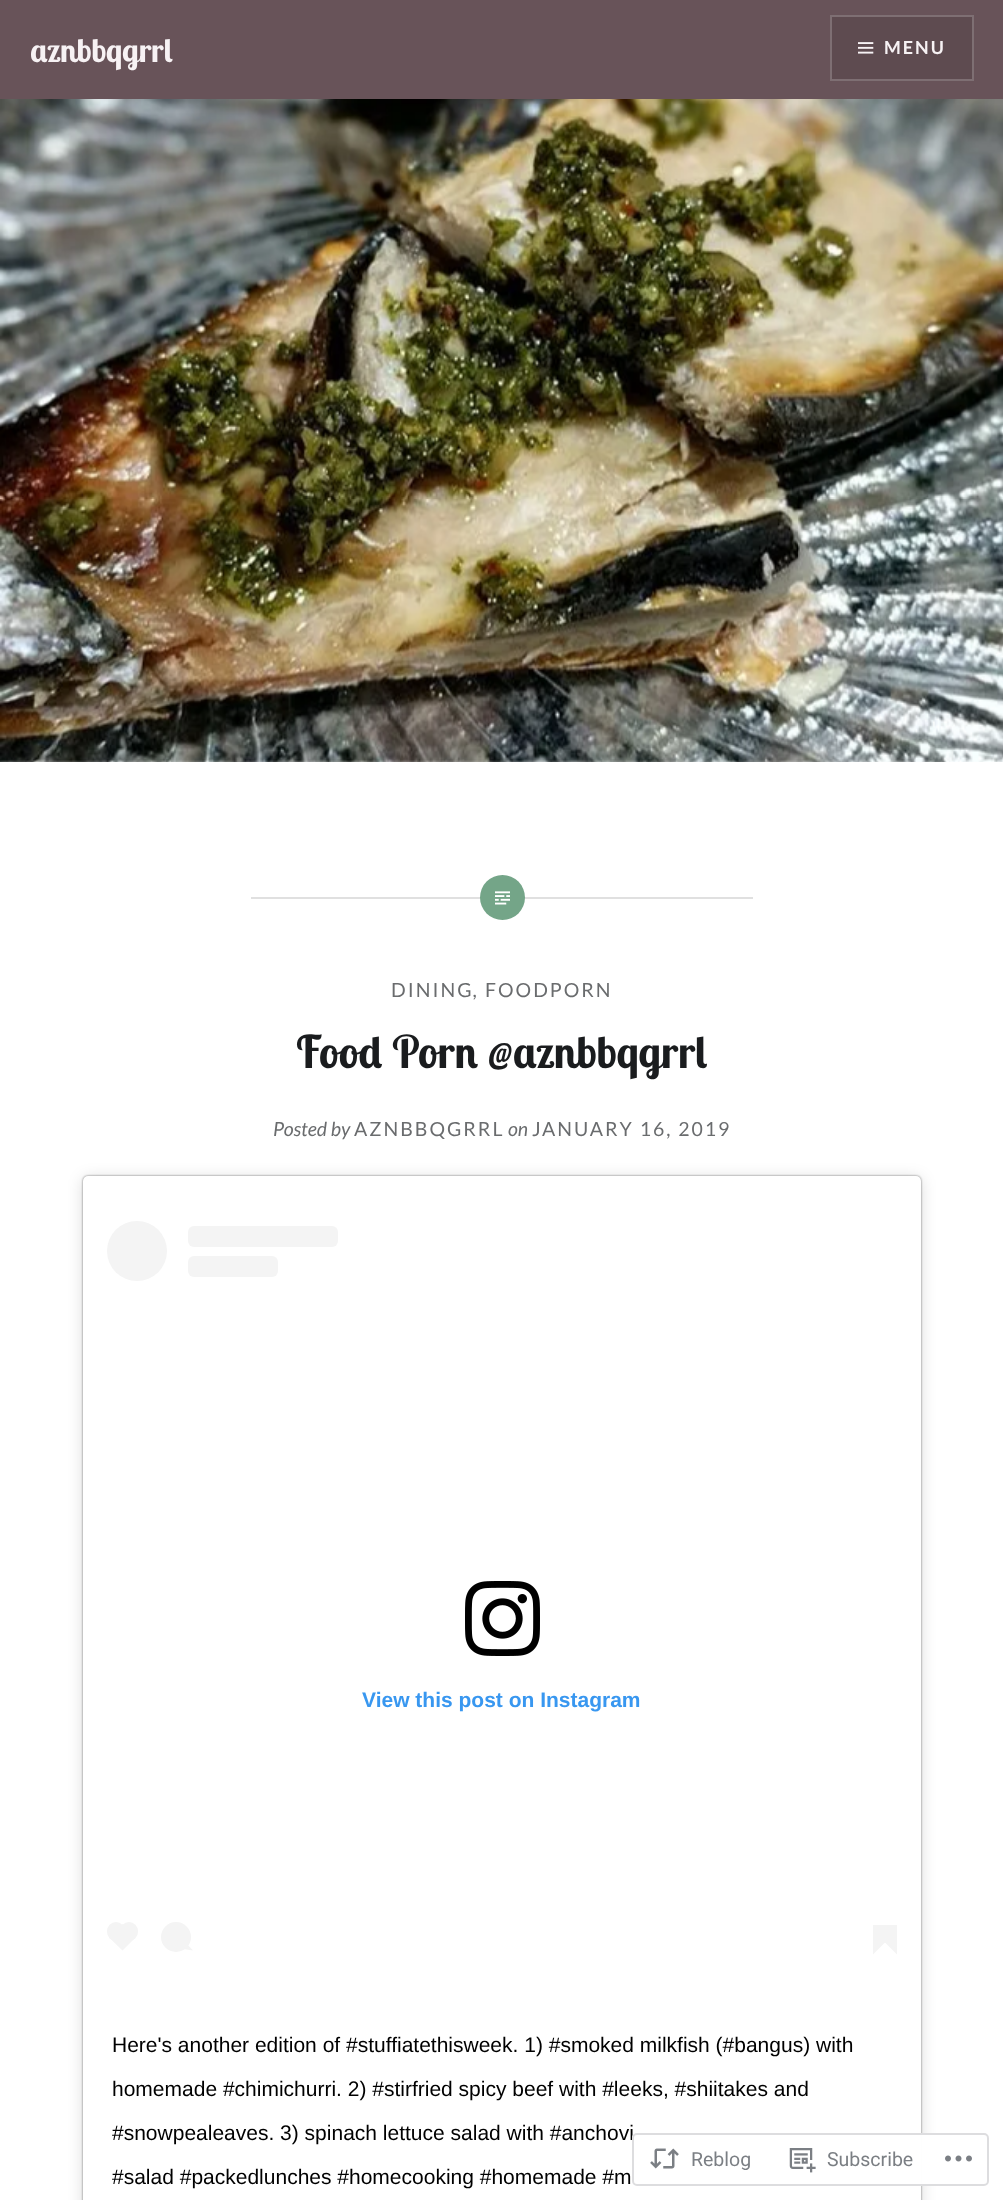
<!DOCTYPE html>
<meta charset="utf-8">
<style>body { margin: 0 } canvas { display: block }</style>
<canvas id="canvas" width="1003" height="2200"></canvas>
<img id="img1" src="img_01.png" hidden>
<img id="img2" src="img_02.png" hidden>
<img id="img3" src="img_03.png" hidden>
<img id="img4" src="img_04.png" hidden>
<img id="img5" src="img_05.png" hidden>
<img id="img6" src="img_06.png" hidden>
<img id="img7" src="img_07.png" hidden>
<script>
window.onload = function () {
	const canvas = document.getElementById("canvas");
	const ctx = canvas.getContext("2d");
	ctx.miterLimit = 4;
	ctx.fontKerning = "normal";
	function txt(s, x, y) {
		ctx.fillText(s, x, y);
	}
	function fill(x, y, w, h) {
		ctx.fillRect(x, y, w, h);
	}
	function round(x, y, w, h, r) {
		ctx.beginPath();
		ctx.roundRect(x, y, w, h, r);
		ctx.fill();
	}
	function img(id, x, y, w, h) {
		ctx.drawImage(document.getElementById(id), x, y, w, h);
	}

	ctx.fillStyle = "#FFFFFF";
	fill(0, 0, 1003, 2200);
	ctx.fillStyle = "#685359";
	fill(0, 0, 1003, 99);
	ctx.fillStyle = "#5E4B50";
	ctx.beginPath();
	ctx.rect(831, 16, 142, 64);
	ctx.fill();
	ctx.strokeStyle = "#7E6F73";
	ctx.lineWidth = 2;
	ctx.stroke();
	img("img1", 858, 42, 16, 12);
	img("img2", 0, 99, 1003, 663);
	ctx.fillStyle = "#E0E0E0";
	fill(251, 897, 502, 2);
	ctx.fillStyle = "#74A588";
	ctx.beginPath();
	ctx.arc(502.5, 897.5, 22.5, 0, Math.PI * 2);
	ctx.fill();
	img("img3", 495, 891, 15, 14);
	ctx.fillStyle = "rgba(0, 0, 0, 0.15)";
	ctx.filter = "blur(7.5px)";
	ctx.beginPath();
	ctx.roundRect(83, 1178, 838, 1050, 5);
	ctx.fill();
	ctx.filter = "none";
	ctx.fillStyle = "rgba(0, 0, 0, 0.5)";
	ctx.filter = "blur(1px)";
	ctx.beginPath();
	ctx.roundRect(83, 1176, 838, 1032, 5);
	ctx.fill();
	ctx.filter = "none";
	ctx.fillStyle = "#FFFFFF";
	round(83, 1176, 838, 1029, 5);
	ctx.fillStyle = "#F4F4F4";
	ctx.beginPath();
	ctx.arc(137, 1251, 30, 0, Math.PI * 2);
	ctx.fill();
	round(188, 1226, 150, 21, 6);
	round(188, 1256, 90, 21, 6);
	img("img4", 465, 1581, 75, 75);
	round(107, 1922, 18, 19, 9);
	ctx.beginPath();
	ctx.moveTo(109, 1937.5);
	ctx.lineTo(122.5, 1924);
	ctx.lineTo(135.5, 1937.5);
	ctx.lineTo(122.5, 1950.5);
	ctx.closePath();
	ctx.fill();
	round(120, 1922, 18, 19, 9);
	ctx.beginPath();
	ctx.arc(176, 1937, 15, 0, Math.PI * 2);
	ctx.fill();
	ctx.beginPath();
	ctx.moveTo(183.5, 1949);
	ctx.lineTo(186.5, 1943.5);
	ctx.lineTo(193, 1950.5);
	ctx.closePath();
	ctx.fill();
	ctx.beginPath();
	ctx.moveTo(873, 1942.5);
	ctx.lineTo(885, 1942.5);
	ctx.lineTo(873, 1954.5);
	ctx.closePath();
	ctx.fill();
	fill(873, 1925, 24, 18);
	ctx.beginPath();
	ctx.moveTo(885, 1942.5);
	ctx.lineTo(897, 1942.5);
	ctx.lineTo(897, 1954.5);
	ctx.closePath();
	ctx.fill();
	ctx.font = "bold 33px Lobster Two";
	ctx.fillStyle = "#F7F2F4";
	txt("aznbbqgrrl", 30, 62);
	ctx.letterSpacing = "2px";
	ctx.font = "bold 18px Lato";
	txt("MENU", 884, 54);
	ctx.font = "19.5px Lato";
	ctx.fillStyle = "#6A6C6E";
	txt("DINING", 391, 997);
	ctx.font = "italic 19.5px Lato";
	txt(",", 473, 997);
	ctx.font = "19.5px Lato";
	txt("FOODPORN", 485, 997);
	ctx.letterSpacing = "0px";
	ctx.font = "bold 45px Lobster Two";
	ctx.fillStyle = "#1A1C1E";
	txt("Food Porn @aznbbqgrrl", 296, 1068);
	ctx.font = "italic 19.5px Lato";
	ctx.fillStyle = "#6A6C6E";
	txt("Posted by", 273, 1136);
	ctx.letterSpacing = "2px";
	ctx.font = "19.5px Lato";
	txt("AZNBBQGRRL", 354, 1136);
	ctx.letterSpacing = "0px";
	ctx.font = "italic 19.5px Lato";
	txt("on", 508, 1136);
	ctx.letterSpacing = "2px";
	ctx.font = "19.5px Lato";
	txt("JANUARY 16, 2019", 532, 1136);
	ctx.letterSpacing = "0px";
	ctx.font = "bold 21px Liberation Sans";
	ctx.fillStyle = "#3897F0";
	txt("View this post on Instagram", 362, 1707);
	ctx.font = "21px Liberation Sans";
	ctx.fillStyle = "#000000";
	txt("Here's another edition of #stuffiatethisweek. 1) #smoked milkfish (#bangus) with", 112, 2052);
	txt("homemade #chimichurri. 2) #stirfried spicy beef with #leeks, #shiitakes and", 112, 2096);
	txt("#snowpealeaves. 3) spinach lettuce salad with #anchovi", 112, 2140);
	txt("#salad #packedlunches #homecooking #homemade #m", 112, 2184);
	ctx.fillStyle = "rgba(255, 255, 255, 0.98)";
	round(632, 2133, 357, 53, 5);
	ctx.beginPath();
	ctx.roundRect(633, 2134, 355, 51, 4);
	ctx.strokeStyle = "rgba(220, 220, 222, 0.98)";
	ctx.stroke();
	img("img5", 650, 2148, 29, 21);
	ctx.font = "19.5px Roboto";
	ctx.fillStyle = "#7B7F84";
	txt("Reblog", 691, 2166);
	img("img6", 789, 2148, 27, 25);
	txt("Subscribe", 827, 2166);
	img("img7", 945, 2155, 27, 7);
};
</script>
